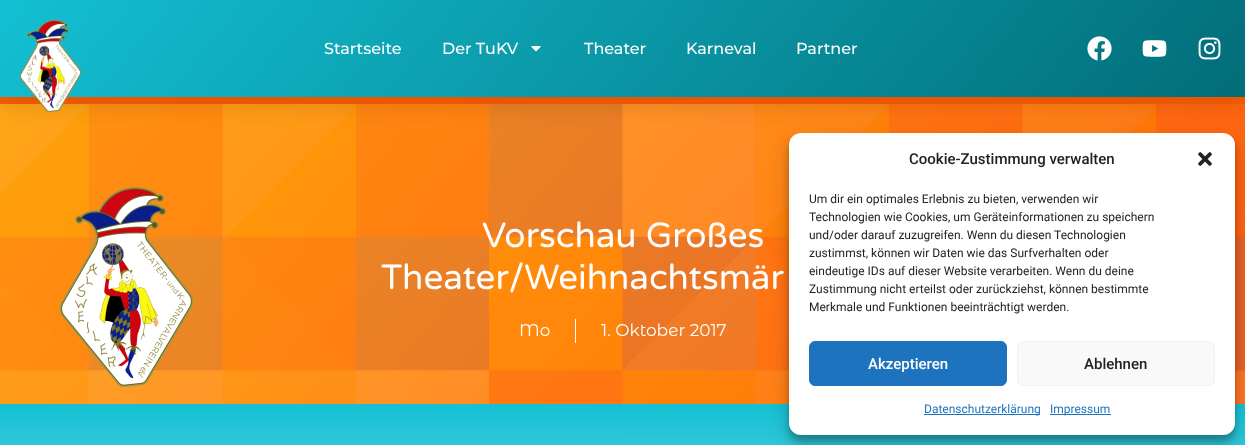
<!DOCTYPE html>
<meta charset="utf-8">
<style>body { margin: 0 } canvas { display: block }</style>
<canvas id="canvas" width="1245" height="445"></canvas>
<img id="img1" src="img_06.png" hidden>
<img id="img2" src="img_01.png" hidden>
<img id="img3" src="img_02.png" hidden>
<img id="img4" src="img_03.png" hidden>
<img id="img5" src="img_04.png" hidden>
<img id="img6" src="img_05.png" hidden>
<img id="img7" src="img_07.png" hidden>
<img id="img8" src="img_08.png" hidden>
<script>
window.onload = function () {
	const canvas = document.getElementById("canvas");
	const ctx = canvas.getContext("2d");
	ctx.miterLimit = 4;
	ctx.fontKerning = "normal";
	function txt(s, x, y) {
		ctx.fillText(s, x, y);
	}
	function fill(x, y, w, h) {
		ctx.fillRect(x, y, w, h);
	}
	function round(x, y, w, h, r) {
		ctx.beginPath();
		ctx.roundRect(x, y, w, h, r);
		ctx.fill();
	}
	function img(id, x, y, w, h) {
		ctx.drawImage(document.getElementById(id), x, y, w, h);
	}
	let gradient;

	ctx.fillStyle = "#FF5D00";
	fill(0, 0, 1245, 445);
	gradient = ctx.createLinearGradient(159, -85, 1086, 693);
	gradient.addColorStop(0, "#FF9900");
	gradient.addColorStop(0.9, "#FF5D00");
	ctx.fillStyle = gradient;
	fill(0, 104, 1245, 300);
	img("img1", 0, 104, 1245, 300);
	ctx.fillStyle = "rgba(0, 0, 0, 0.1)";
	ctx.filter = "blur(10px)";
	ctx.beginPath();
	ctx.rect(0, 10, 1245, 97);
	ctx.fill();
	ctx.filter = "none";
	gradient = ctx.createLinearGradient(233, -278, 1012, 375);
	gradient.addColorStop(0, "#13C0D3");
	gradient.addColorStop(1, "#026D79");
	ctx.fillStyle = gradient;
	fill(0, 0, 1245, 97);
	img("img2", 20, 20, 61, 92);
	img("img3", 531, 46, 10, 6);
	img("img4", 1087, 36, 25, 25);
	img("img5", 1142, 40, 25, 17);
	img("img6", 1198, 37, 23, 23);
	img("img7", 60, 187, 133, 200);
	ctx.fillStyle = "#FFFEFE";
	fill(575, 319, 1, 24);
	gradient = ctx.createLinearGradient(622, 404, 623, 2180);
	gradient.addColorStop(0, "#13C0D3");
	gradient.addColorStop(0.2, "#FFFFFF");
	ctx.fillStyle = gradient;
	fill(0, 404, 1245, 41);
	ctx.fillStyle = "rgba(0, 0, 0, 0.23)";
	ctx.filter = "blur(3px)";
	ctx.beginPath();
	ctx.roundRect(789, 139, 446, 302, 12);
	ctx.fill();
	ctx.filter = "none";
	ctx.fillStyle = "rgba(0, 0, 0, 0.19)";
	ctx.filter = "blur(10px)";
	ctx.beginPath();
	ctx.roundRect(789, 143, 446, 302, 12);
	ctx.fill();
	ctx.filter = "none";
	ctx.fillStyle = "#FFFFFF";
	round(789, 133, 446, 302, 12);
	img("img8", 1198, 152, 14, 14);
	ctx.fillStyle = "#1E73BE";
	ctx.beginPath();
	ctx.roundRect(809.5, 341.5, 197, 44, 5.5);
	ctx.fill();
	ctx.strokeStyle = "#1E73BE";
	ctx.stroke();
	ctx.fillStyle = "#F9F9F9";
	ctx.beginPath();
	ctx.roundRect(1017.5, 341.5, 197, 44, 5.5);
	ctx.fill();
	ctx.strokeStyle = "#F2F2F2";
	ctx.stroke();
	ctx.fillStyle = "#1E73BE";
	fill(924, 414, 116, 1);
	fill(1050, 414, 61, 1);
	ctx.font = "500 16px Montserrat";
	ctx.fillStyle = "#FFFEFE";
	txt("Startseite", 324, 54);
	txt("Der TuKV", 442, 54);
	txt("Theater", 584, 54);
	txt("Karneval", 686, 54);
	txt("Partner", 796, 54);
	ctx.font = "35px Varela Round";
	txt("Vorschau Großes", 482, 247);
	txt("Theater/Weihnachtsmär", 381, 289);
	ctx.font = "17px Montserrat Alternates";
	txt("Mo", 519, 336);
	txt("1. Oktober 2017", 601, 336);
	ctx.font = "500 15px Roboto";
	ctx.fillStyle = "#222222";
	txt("Cookie-Zustimmung verwalten", 909, 164);
	ctx.font = "12px Roboto";
	txt("Um dir ein optimales Erlebnis zu bieten, verwenden wir", 809, 203);
	txt("Technologien wie Cookies, um Geräteinformationen zu speichern", 809, 221);
	txt("und/oder darauf zuzugreifen. Wenn du diesen Technologien", 809, 239);
	txt("zustimmst, können wir Daten wie das Surfverhalten oder", 809, 257);
	txt("eindeutige IDs auf dieser Website verarbeiten. Wenn du deine", 809, 275);
	txt("Zustimmung nicht erteilst oder zurückziehst, können bestimmte", 809, 293);
	txt("Merkmale und Funktionen beeinträchtigt werden.", 809, 311);
	ctx.font = "500 15px Roboto";
	ctx.fillStyle = "#FFFEFE";
	txt("Akzeptieren", 868, 369);
	ctx.fillStyle = "#222222";
	txt("Ablehnen", 1084, 369);
	ctx.font = "12px Roboto";
	ctx.fillStyle = "#1E73BE";
	txt("Datenschutzerklärung", 924, 413);
	txt("Impressum", 1050, 413);
};
</script>
